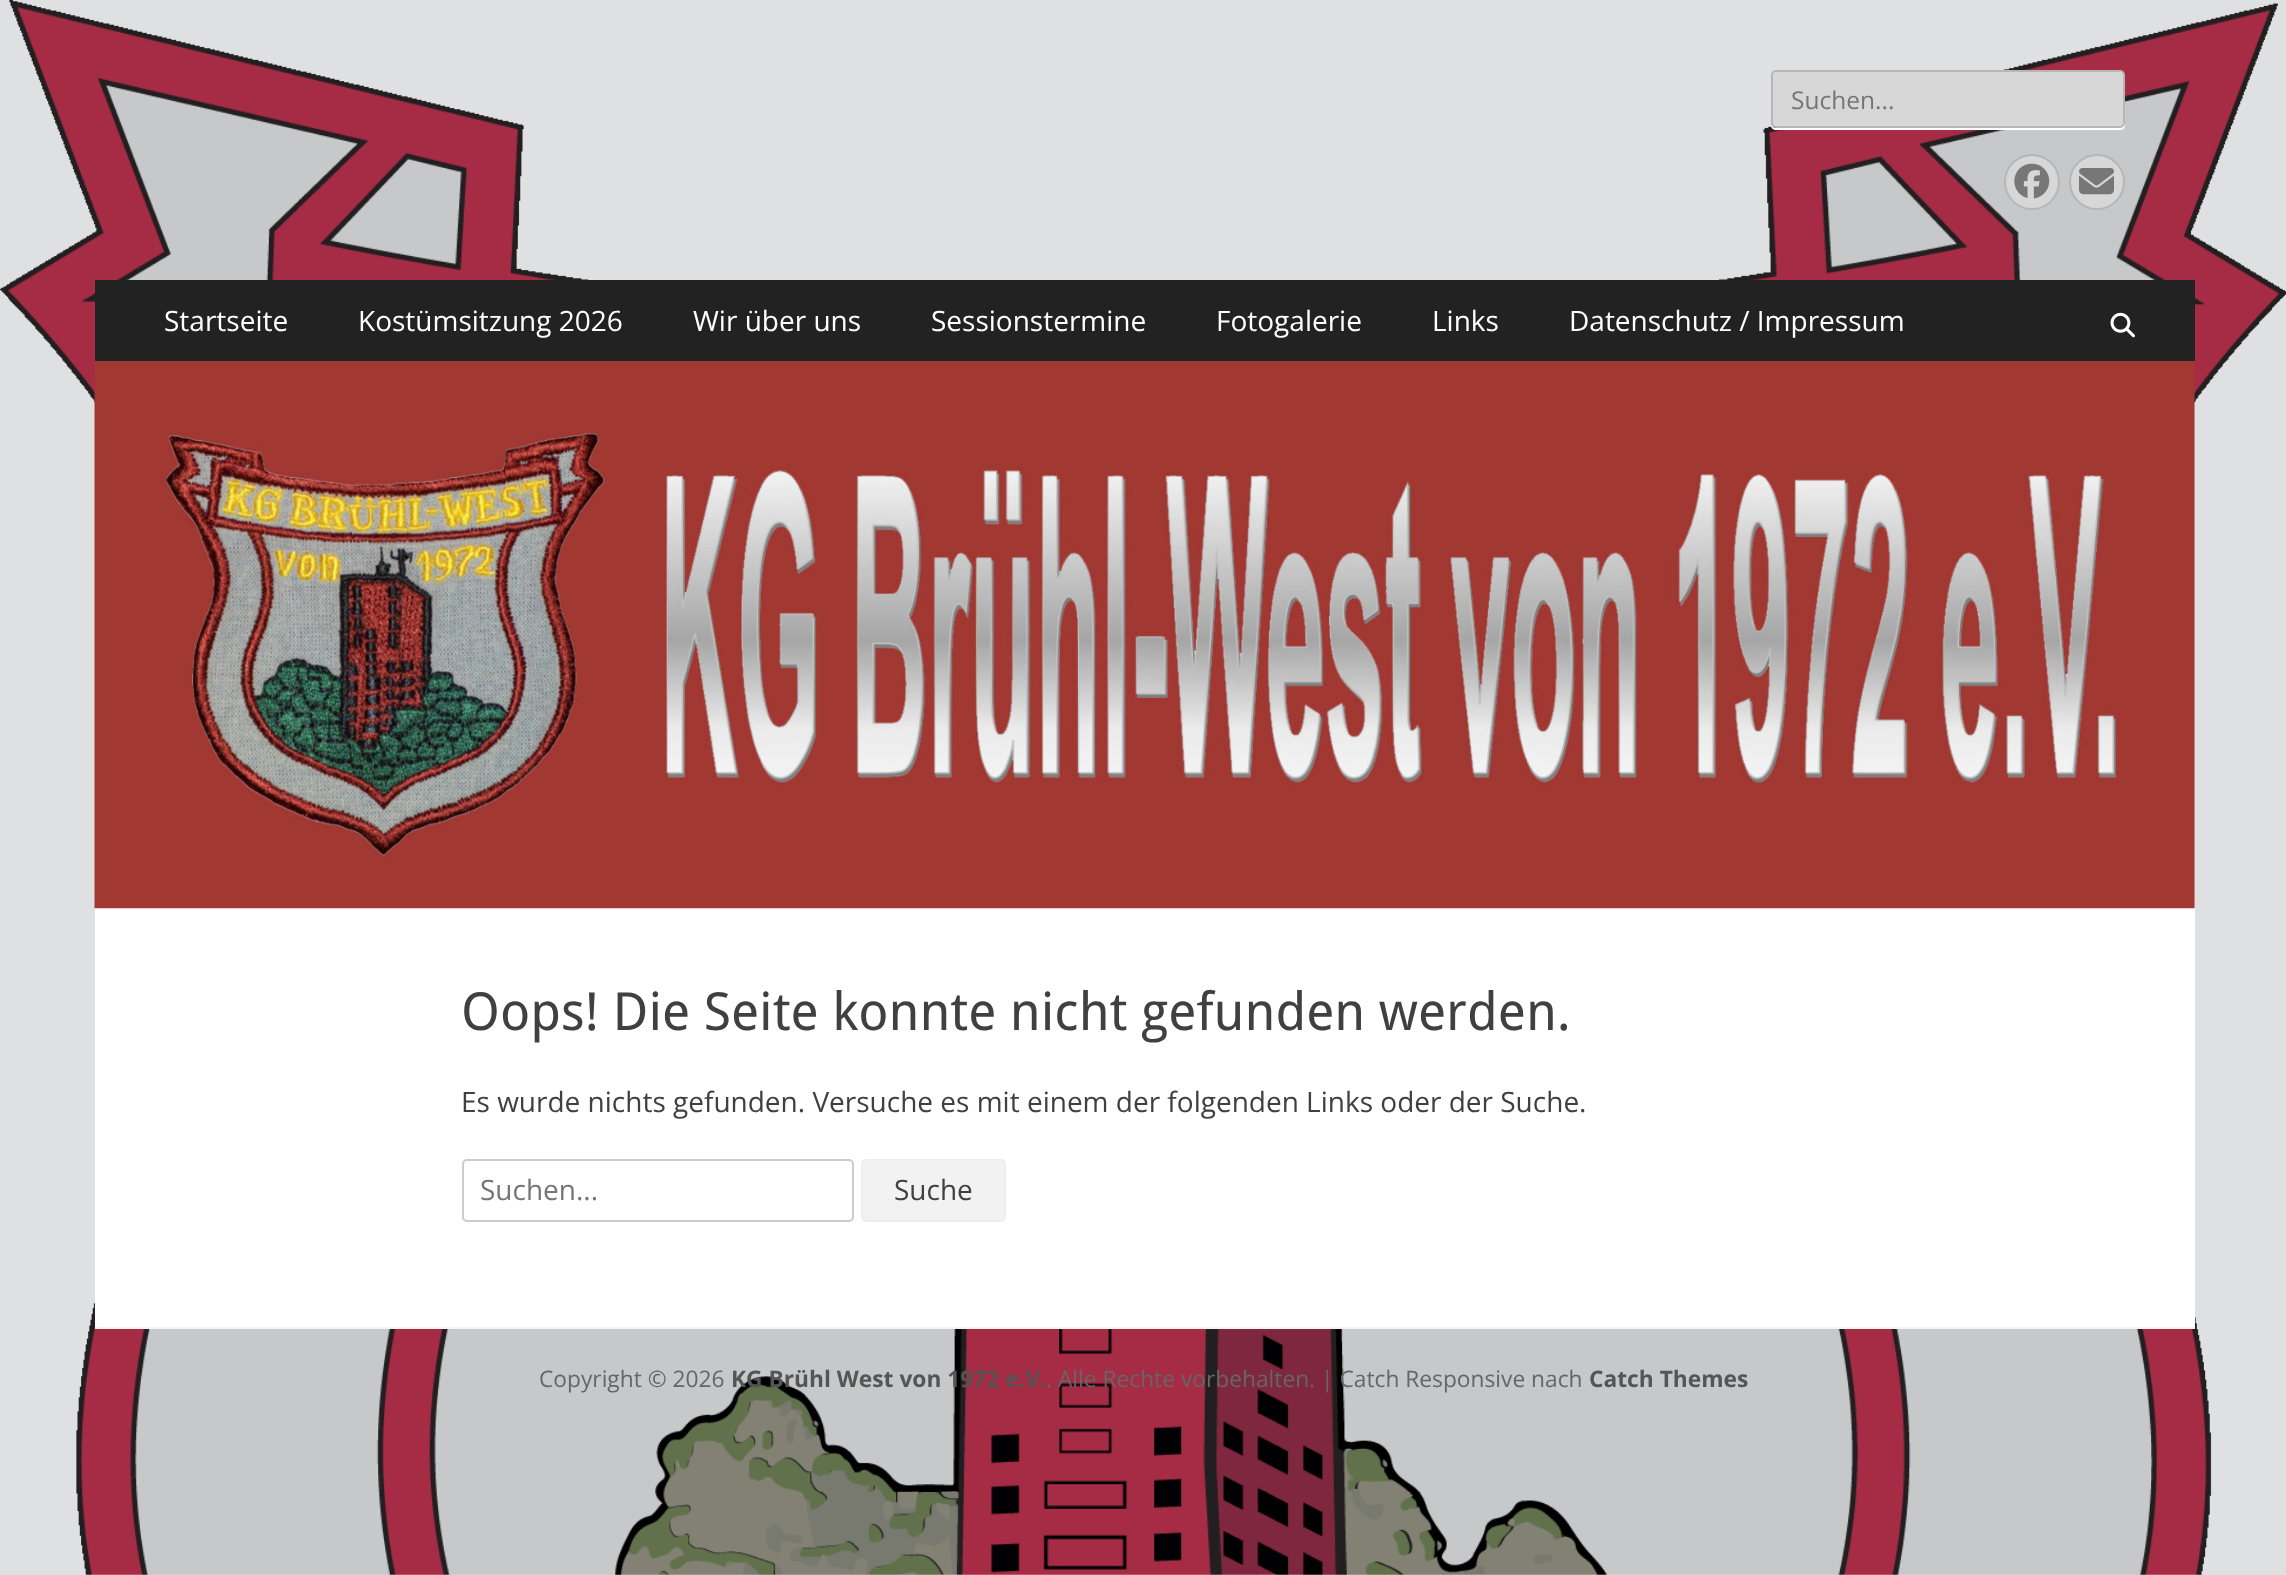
<!DOCTYPE html>
<meta charset="utf-8">
<style>body { margin: 0 } canvas { display: block }</style>
<canvas id="canvas" width="2286" height="1575"></canvas>
<img id="img1" src="img_01.png" hidden>
<img id="img2" src="img_02.png" hidden>
<img id="img3" src="img_03.png" hidden>
<img id="img4" src="img_05.png" hidden>
<img id="img5" src="img_04.png" hidden>
<script>
window.onload = function () {
	const canvas = document.getElementById("canvas");
	const ctx = canvas.getContext("2d");
	ctx.miterLimit = 4;
	ctx.fontKerning = "normal";
	function txt(s, x, y) {
		ctx.fillText(s, x, y);
	}
	function fill(x, y, w, h) {
		ctx.fillRect(x, y, w, h);
	}
	function img(id, x, y, w, h) {
		ctx.drawImage(document.getElementById(id), x, y, w, h);
	}

	ctx.fillStyle = "#DFE0E1";
	fill(0, 0, 2286, 1575);
	img("img1", 0, 0, 2286, 1575);
	ctx.fillStyle = "#FFFFFF";
	ctx.beginPath();
	ctx.moveTo(1771, 122);
	ctx.lineTo(1771, 125);
	ctx.bezierCurveTo(1771, 128, 1773, 130, 1776, 130);
	ctx.lineTo(2120, 130);
	ctx.bezierCurveTo(2123, 130, 2125, 128, 2125, 125);
	ctx.lineTo(2125, 77);
	ctx.lineTo(2124, 75);
	ctx.lineTo(2124, 122);
	ctx.bezierCurveTo(2124, 125, 2122, 128, 2119, 128);
	ctx.lineTo(1776, 128);
	ctx.bezierCurveTo(1773, 128, 1771, 125, 1771, 122);
	ctx.closePath();
	ctx.fill();
	ctx.fillStyle = "#D7D7D7";
	ctx.beginPath();
	ctx.roundRect(1772, 71, 352, 56, 4);
	ctx.fill();
	ctx.strokeStyle = "#B6B6B6";
	ctx.lineWidth = 2;
	ctx.stroke();
	ctx.beginPath();
	ctx.arc(2032, 182, 27, 0, Math.PI * 2);
	ctx.fill();
	ctx.stroke();
	img("img2", 2014, 163, 36, 36);
	ctx.beginPath();
	ctx.arc(2097, 182, 27, 0, Math.PI * 2);
	ctx.fill();
	ctx.stroke();
	img("img3", 2079, 168, 35, 27);
	ctx.fillStyle = "#FFFFFF";
	fill(95, 908, 2100, 419);
	img("img4", 94, 360, 2101, 549);
	ctx.fillStyle = "#222222";
	fill(95, 280, 2100, 81);
	img("img5", 2110, 312, 25, 26);
	ctx.beginPath();
	ctx.roundRect(463, 1160, 390, 61, 4);
	ctx.strokeStyle = "#CCCCCC";
	ctx.stroke();
	ctx.fillStyle = "#F2F2F2";
	ctx.beginPath();
	ctx.roundRect(862, 1160, 143, 61, 4);
	ctx.fill();
	ctx.strokeStyle = "#EEEEEE";
	ctx.stroke();
	ctx.fillStyle = "#F4F4F4";
	fill(95, 1327, 2100, 2);
	ctx.font = "24.5px Open Sans";
	ctx.fillStyle = "#757575";
	txt("Suchen...", 1791, 109);
	ctx.font = "28px Open Sans";
	ctx.fillStyle = "#FFFFFF";
	txt("Startseite", 164, 331);
	txt("Kostümsitzung 2026", 358, 331);
	txt("Wir über uns", 693, 331);
	txt("Sessionstermine", 931, 331);
	txt("Fotogalerie", 1216, 331);
	txt("Links", 1432, 331);
	txt("Datenschutz / Impressum", 1569, 331);
	ctx.font = "52.5px Droid Sans";
	ctx.fillStyle = "#404040";
	txt("Oops! Die Seite konnte nicht gefunden werden.", 461, 1030);
	ctx.font = "28px Open Sans";
	txt("Es wurde nichts gefunden. Versuche es mit einem der folgenden Links oder der Suche.", 461, 1112);
	ctx.fillStyle = "#757575";
	txt("Suchen...", 480, 1200);
	ctx.fillStyle = "#404040";
	txt("Suche", 894, 1200);
	ctx.font = "22.75px Open Sans";
	ctx.fillStyle = "#666666";
	txt("Copyright © 2026", 539, 1387);
	ctx.font = "bold 22.75px Open Sans";
	ctx.fillStyle = "#555555";
	txt("KG Brühl West von 1972 e.V.", 731, 1387);
	ctx.font = "22.75px Open Sans";
	ctx.fillStyle = "#666666";
	txt(". Alle Rechte vorbehalten. | Catch Responsive nach", 1046, 1387);
	ctx.font = "bold 22.75px Open Sans";
	ctx.fillStyle = "#555555";
	txt("Catch Themes", 1589, 1387);
};
</script>
